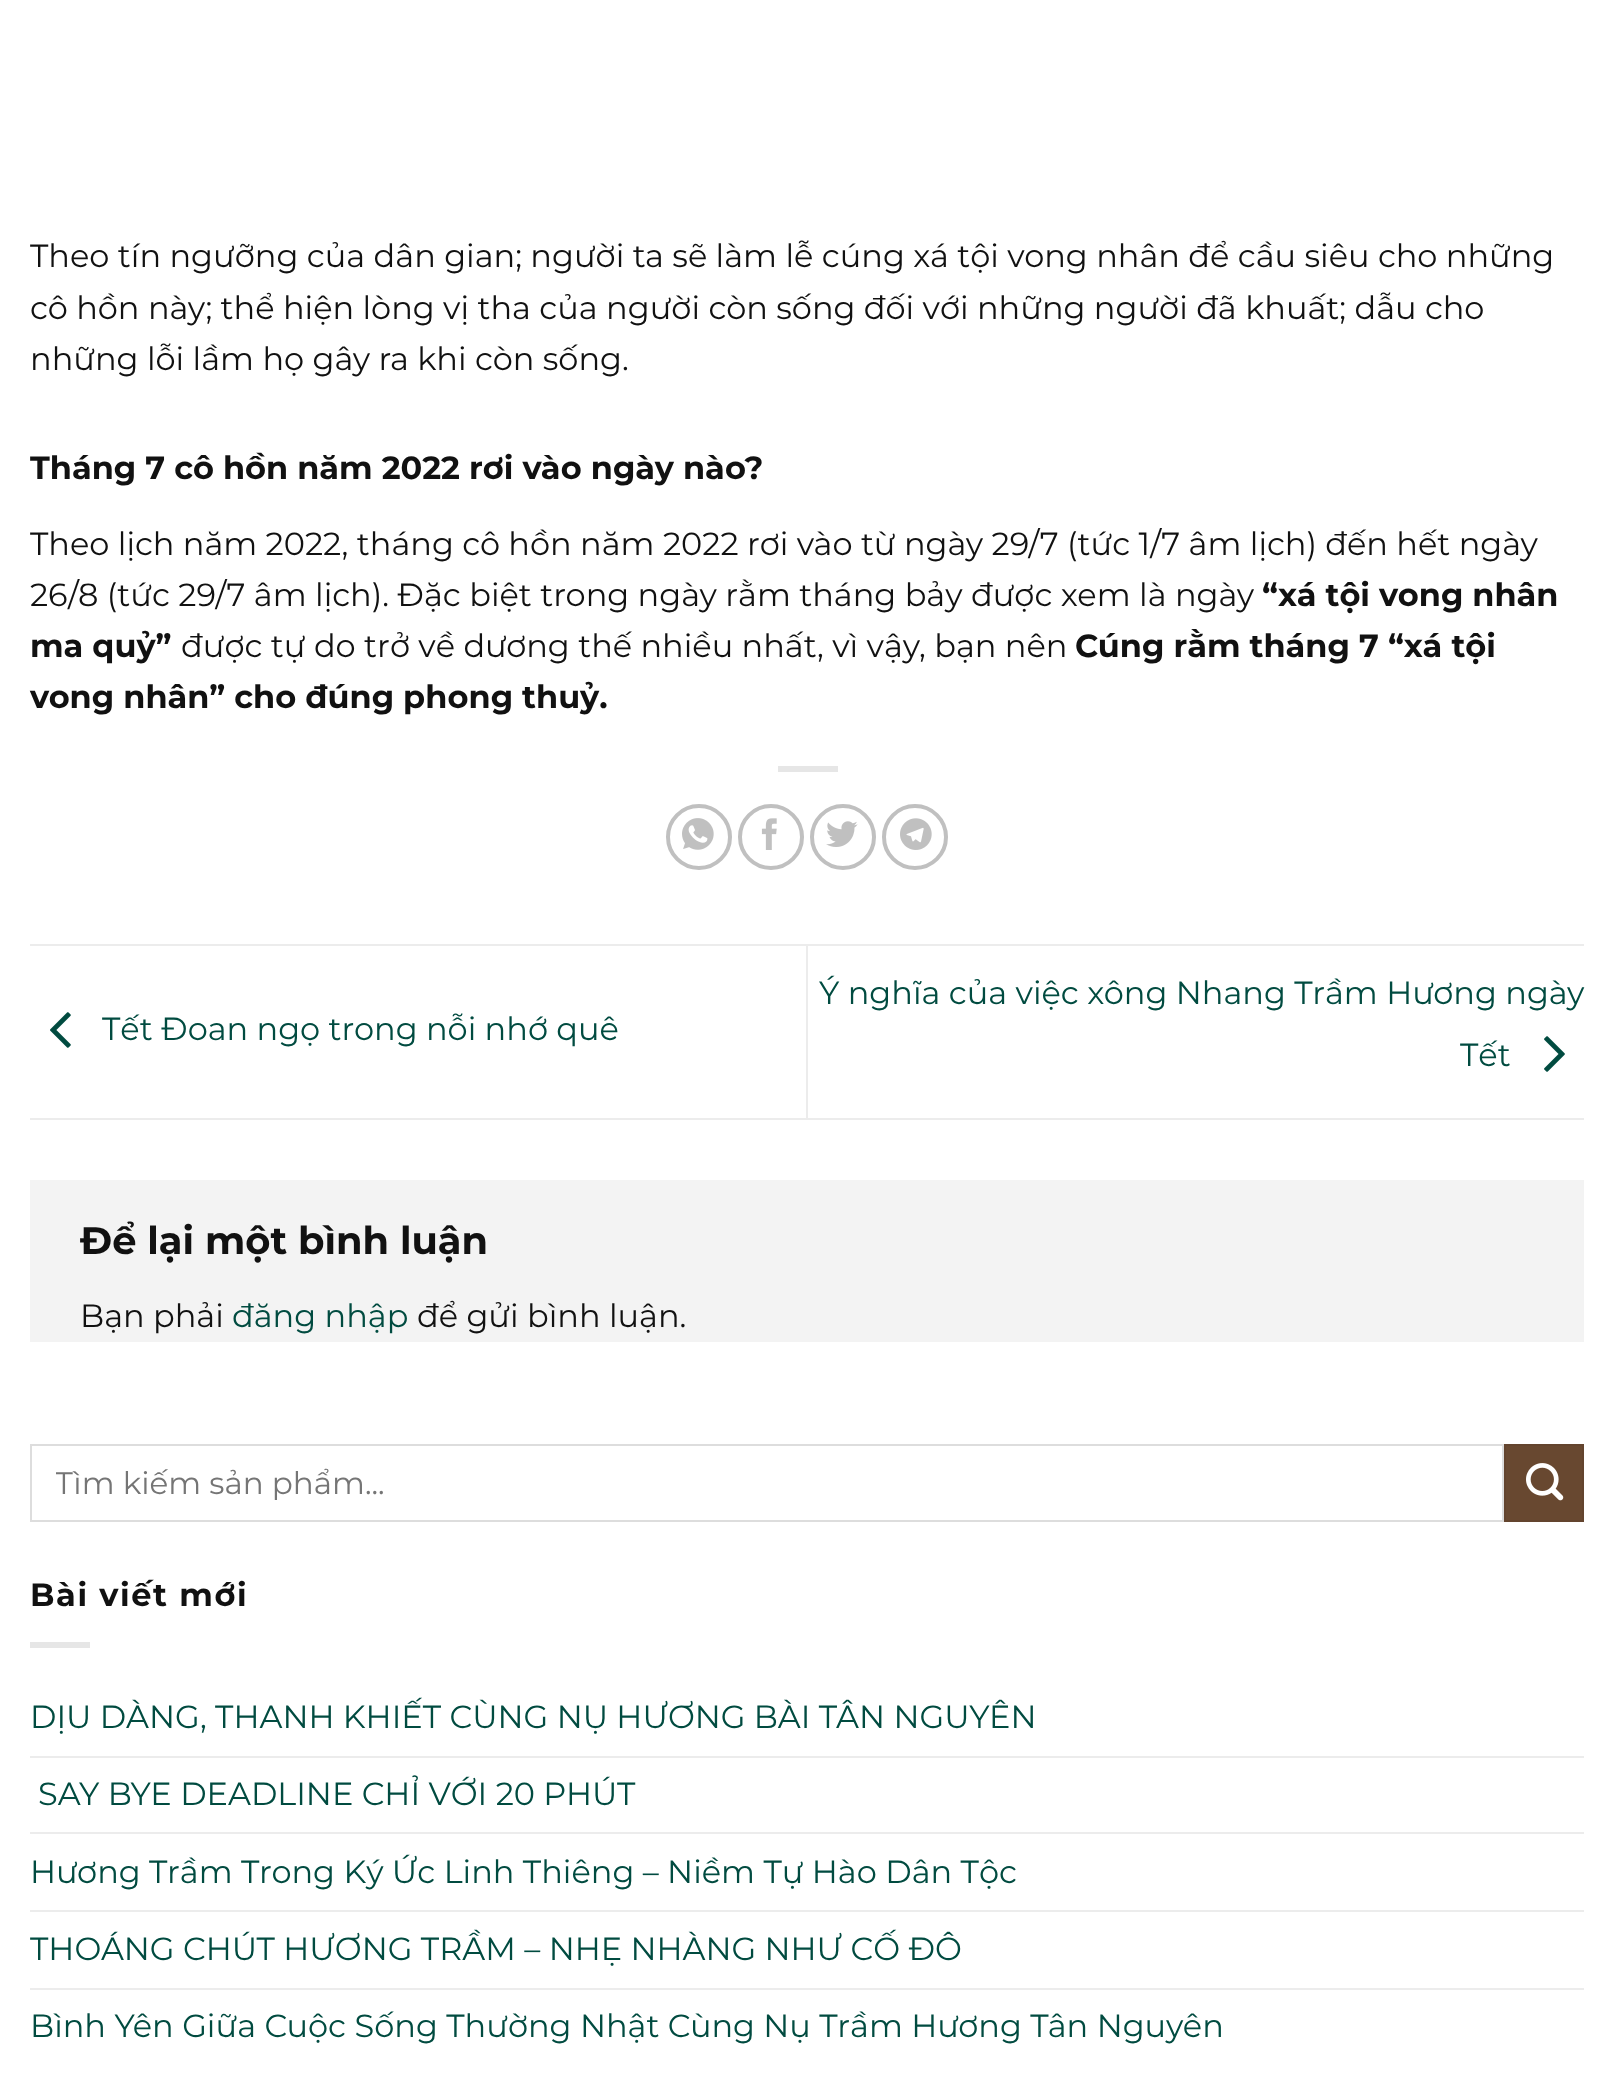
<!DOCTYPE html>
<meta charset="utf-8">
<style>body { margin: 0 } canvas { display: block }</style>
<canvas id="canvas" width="1613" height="2096"></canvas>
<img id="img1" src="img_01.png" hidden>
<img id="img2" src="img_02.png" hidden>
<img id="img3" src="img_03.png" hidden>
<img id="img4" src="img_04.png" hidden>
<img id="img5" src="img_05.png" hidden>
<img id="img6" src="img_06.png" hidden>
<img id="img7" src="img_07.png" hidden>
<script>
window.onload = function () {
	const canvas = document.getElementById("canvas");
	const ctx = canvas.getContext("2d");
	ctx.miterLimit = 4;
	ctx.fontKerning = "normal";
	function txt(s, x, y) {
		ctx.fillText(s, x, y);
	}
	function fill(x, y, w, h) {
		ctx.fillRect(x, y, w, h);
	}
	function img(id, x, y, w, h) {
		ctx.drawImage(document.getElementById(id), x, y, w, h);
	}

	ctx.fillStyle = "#FFFFFF";
	fill(0, 0, 1613, 2096);
	ctx.fillStyle = "#E6E6E6";
	fill(778, 766, 60, 6);
	ctx.beginPath();
	ctx.arc(699, 837, 31, 0, Math.PI * 2);
	ctx.strokeStyle = "#C0C0C0";
	ctx.lineWidth = 4;
	ctx.stroke();
	img("img1", 682, 818, 32, 32);
	ctx.beginPath();
	ctx.arc(771, 837, 31, 0, Math.PI * 2);
	ctx.stroke();
	img("img2", 761, 818, 16, 32);
	ctx.beginPath();
	ctx.arc(843, 837, 31, 0, Math.PI * 2);
	ctx.stroke();
	img("img3", 826, 821, 32, 26);
	ctx.beginPath();
	ctx.arc(915, 837, 31, 0, Math.PI * 2);
	ctx.stroke();
	img("img4", 900, 818, 32, 32);
	ctx.fillStyle = "#ECECEC";
	fill(30, 944, 1554, 2);
	fill(30, 1118, 1554, 2);
	img("img5", 50, 1012, 21, 36);
	fill(806, 946, 2, 172);
	img("img6", 1544, 1036, 21, 36);
	ctx.fillStyle = "#F3F3F3";
	fill(30, 1180, 1554, 162);
	ctx.strokeStyle = "#DDDDDD";
	ctx.lineWidth = 2;
	ctx.strokeRect(31, 1445, 1472, 76);
	ctx.fillStyle = "#684830";
	ctx.beginPath();
	ctx.rect(1505, 1445, 78, 76);
	ctx.fill();
	ctx.strokeStyle = "#63442E";
	ctx.stroke();
	img("img7", 1526, 1463, 38, 38);
	ctx.fillStyle = "#E6E6E6";
	fill(30, 1642, 60, 6);
	ctx.fillStyle = "#ECECEC";
	fill(30, 1756, 1554, 2);
	fill(30, 1832, 1554, 2);
	fill(30, 1910, 1554, 2);
	fill(30, 1988, 1554, 2);
	ctx.font = "32px Montserrat";
	ctx.fillStyle = "#111111";
	txt("Theo tín ngưỡng của dân gian; người ta sẽ làm lễ cúng xá tội vong nhân để cầu siêu cho những", 30, 267);
	txt("cô hồn này; thể hiện lòng vị tha của người còn sống đối với những người đã khuất; dẫu cho", 30, 319);
	txt("những lỗi lầm họ gây ra khi còn sống.", 30, 370);
	ctx.font = "bold 32px Montserrat";
	txt("Tháng 7 cô hồn năm 2022 rơi vào ngày nào?", 30, 479);
	ctx.font = "32px Montserrat";
	txt("Theo lịch năm 2022, tháng cô hồn năm 2022 rơi vào từ ngày 29/7 (tức 1/7 âm lịch) đến hết ngày", 30, 555);
	txt("26/8 (tức 29/7 âm lịch). Đặc biệt trong ngày rằm tháng bảy được xem là ngày", 30, 606);
	ctx.font = "bold 32px Montserrat";
	txt("“xá tội vong nhân", 1262, 606);
	txt("ma quỷ”", 30, 657);
	ctx.font = "32px Montserrat";
	txt("được tự do trở về dương thế nhiều nhất, vì vậy, bạn nên", 181, 657);
	ctx.font = "bold 32px Montserrat";
	txt("Cúng rằm tháng 7 “xá tội", 1075, 657);
	txt("vong nhân” cho đúng phong thuỷ.", 30, 708);
	ctx.font = "32px Montserrat";
	ctx.fillStyle = "#014B40";
	txt("Tết Đoan ngọ trong nỗi nhớ quê", 102, 1040);
	txt("Ý nghĩa của việc xông Nhang Trầm Hương ngày", 819, 1004);
	txt("Tết", 1460, 1066);
	ctx.font = "bold 38.4px Montserrat";
	ctx.fillStyle = "#111111";
	txt("Để lại một bình luận", 80, 1254);
	ctx.font = "32px Montserrat";
	txt("Bạn phải", 80, 1327);
	ctx.fillStyle = "#014B40";
	txt("đăng nhập", 232, 1327);
	ctx.fillStyle = "#111111";
	txt("để gửi bình luận.", 417, 1327);
	ctx.save();
	ctx.beginPath();
	ctx.rect(56, 1464, 1416, 38);
	ctx.clip();
	ctx.font = "31px Montserrat";
	ctx.fillStyle = "#757575";
	txt("Tìm kiếm sản phẩm...", 55, 1494);
	ctx.restore();
	ctx.letterSpacing = "1.6px";
	ctx.font = "bold 32px Montserrat";
	txt("Bài viết mới", 30, 1606);
	ctx.letterSpacing = "0px";
	ctx.font = "32px Montserrat";
	ctx.fillStyle = "#014B40";
	txt("DỊU DÀNG, THANH KHIẾT CÙNG NỤ HƯƠNG BÀI TÂN NGUYÊN", 30, 1728);
	txt("SAY BYE DEADLINE CHỈ VỚI 20 PHÚT", 38, 1805);
	txt("Hương Trầm Trong Ký Ức Linh Thiêng – Niềm Tự Hào Dân Tộc", 30, 1883);
	txt("THOÁNG CHÚT HƯƠNG TRẦM – NHẸ NHÀNG NHƯ CỐ ĐÔ", 30, 1960);
	txt("Bình Yên Giữa Cuộc Sống Thường Nhật Cùng Nụ Trầm Hương Tân Nguyên", 30, 2037);
};
</script>
